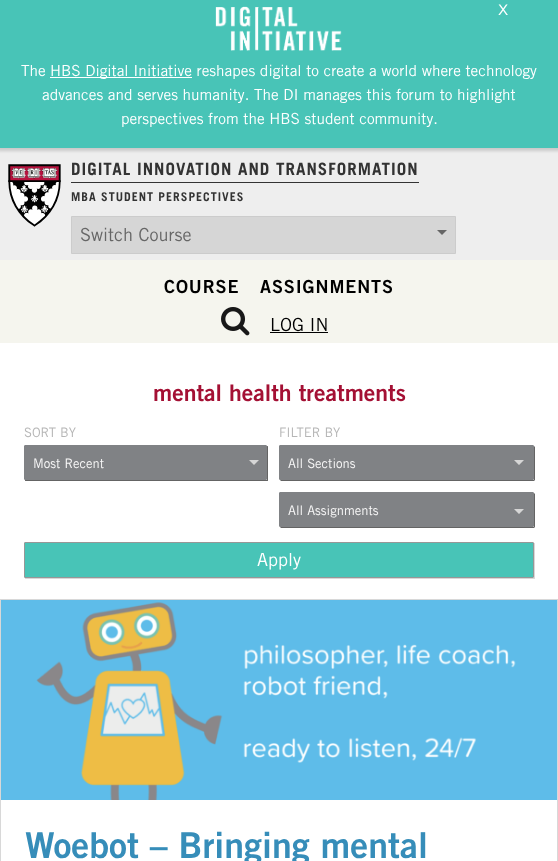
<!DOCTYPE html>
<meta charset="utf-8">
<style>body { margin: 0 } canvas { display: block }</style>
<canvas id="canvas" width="558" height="861"></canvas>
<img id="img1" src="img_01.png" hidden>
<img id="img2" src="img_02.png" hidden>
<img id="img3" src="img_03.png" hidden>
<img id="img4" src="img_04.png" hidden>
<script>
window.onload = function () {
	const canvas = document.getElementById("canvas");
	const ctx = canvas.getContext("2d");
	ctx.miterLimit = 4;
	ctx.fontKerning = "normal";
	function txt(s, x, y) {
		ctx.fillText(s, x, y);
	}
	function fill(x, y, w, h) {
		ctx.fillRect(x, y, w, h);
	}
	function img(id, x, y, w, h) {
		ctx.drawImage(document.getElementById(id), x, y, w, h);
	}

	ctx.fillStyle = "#FFFFFF";
	fill(0, 0, 558, 861);
	ctx.fillStyle = "#EEEEEE";
	fill(0, 148, 558, 112);
	ctx.fillStyle = "rgba(0, 0, 0, 0.15)";
	ctx.filter = "blur(1.5px)";
	ctx.beginPath();
	ctx.rect(-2, -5, 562, 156);
	ctx.fill();
	ctx.filter = "none";
	ctx.fillStyle = "#48C4B7";
	fill(0, 0, 558, 148);
	img("img1", 215, 6, 127, 45);
	ctx.fillStyle = "#FFFFFF";
	fill(50, 77, 142, 1);
	ctx.fillStyle = "#F5F5EE";
	fill(0, 260, 558, 83);
	img("img2", 8, 164, 53, 63);
	ctx.fillStyle = "#333333";
	fill(71, 182, 348, 1);
	ctx.fillStyle = "#D6D6D6";
	ctx.beginPath();
	ctx.rect(71.5, 216.5, 384, 37);
	ctx.fill();
	ctx.strokeStyle = "#CCCCCC";
	ctx.stroke();
	ctx.fillStyle = "#666666";
	ctx.beginPath();
	ctx.moveTo(437, 230);
	ctx.lineTo(447, 230);
	ctx.lineTo(442, 235);
	ctx.closePath();
	ctx.fill();
	img("img3", 221, 307, 29, 29);
	ctx.fillStyle = "#000000";
	fill(270, 332, 58, 1);
	ctx.fillStyle = "#646464";
	ctx.beginPath();
	ctx.moveTo(25, 480);
	ctx.bezierCurveTo(25, 481, 25, 481, 26, 481);
	ctx.lineTo(267, 481);
	ctx.bezierCurveTo(268, 481, 268, 481, 268, 480);
	ctx.lineTo(268, 447);
	ctx.bezierCurveTo(268, 446, 268, 446, 267, 446);
	ctx.lineTo(267, 479);
	ctx.bezierCurveTo(267, 480, 267, 480, 266, 480);
	ctx.closePath();
	ctx.fill();
	ctx.fillStyle = "#808285";
	ctx.beginPath();
	ctx.roundRect(24.5, 445.5, 242, 34, 0.5);
	ctx.fill();
	ctx.strokeStyle = "#808285";
	ctx.stroke();
	ctx.fillStyle = "#D6D6D6";
	ctx.beginPath();
	ctx.moveTo(249, 460);
	ctx.lineTo(259, 460);
	ctx.lineTo(254, 465);
	ctx.closePath();
	ctx.fill();
	ctx.fillStyle = "#646464";
	ctx.beginPath();
	ctx.moveTo(280, 480);
	ctx.lineTo(281, 481);
	ctx.lineTo(534, 481);
	ctx.lineTo(535, 480);
	ctx.lineTo(535, 447);
	ctx.lineTo(534, 446);
	ctx.lineTo(534, 479);
	ctx.bezierCurveTo(534, 480, 534, 480, 533, 480);
	ctx.closePath();
	ctx.fill();
	ctx.fillStyle = "#808285";
	ctx.beginPath();
	ctx.roundRect(279.5, 445.5, 254, 34, 0.5);
	ctx.fill();
	ctx.stroke();
	ctx.fillStyle = "#646464";
	ctx.beginPath();
	ctx.moveTo(280, 527);
	ctx.lineTo(281, 528);
	ctx.lineTo(534, 528);
	ctx.lineTo(535, 527);
	ctx.lineTo(535, 494);
	ctx.lineTo(534, 493);
	ctx.lineTo(534, 526);
	ctx.bezierCurveTo(534, 527, 534, 527, 533, 527);
	ctx.closePath();
	ctx.fill();
	ctx.fillStyle = "#808285";
	ctx.beginPath();
	ctx.roundRect(279.5, 492.5, 254, 34, 0.5);
	ctx.fill();
	ctx.stroke();
	ctx.fillStyle = "#D6D6D6";
	ctx.beginPath();
	ctx.moveTo(514, 460);
	ctx.lineTo(524, 460);
	ctx.lineTo(519, 465);
	ctx.closePath();
	ctx.moveTo(514, 509);
	ctx.lineTo(524, 509);
	ctx.lineTo(519, 514);
	ctx.closePath();
	ctx.fill();
	ctx.fillStyle = "#D8D8D8";
	ctx.beginPath();
	ctx.moveTo(25, 578);
	ctx.bezierCurveTo(25, 579, 25, 579, 26, 579);
	ctx.lineTo(534, 579);
	ctx.bezierCurveTo(535, 579, 535, 579, 535, 578);
	ctx.lineTo(535, 544);
	ctx.bezierCurveTo(535, 543, 535, 543, 534, 543);
	ctx.lineTo(534, 577);
	ctx.bezierCurveTo(534, 578, 534, 578, 533, 578);
	ctx.closePath();
	ctx.fill();
	ctx.fillStyle = "#48C4B7";
	ctx.beginPath();
	ctx.roundRect(24.5, 542.5, 509, 35, 0.5);
	ctx.fill();
	ctx.strokeStyle = "#979797";
	ctx.stroke();
	ctx.strokeStyle = "#D8D8D8";
	ctx.strokeRect(0.5, 599.5, 557, 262);
	img("img4", 1, 600, 556, 200);
	ctx.font = "15.3px Liberation Sans";
	ctx.fillStyle = "#FFFFFF";
	txt("X", 498, 15);
	ctx.font = "15.3px Trade Gothic";
	txt("The", 21, 76);
	txt("HBS Digital Initiative reshapes digital to create a world where technology", 50, 76);
	txt("advances and serves humanity. The DI manages this forum to highlight", 42, 100);
	txt("perspectives from the HBS student community.", 121, 124);
	ctx.letterSpacing = "1px";
	ctx.font = "bold 17px 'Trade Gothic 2'";
	ctx.fillStyle = "#333333";
	txt("DIGITAL INNOVATION AND TRANSFORMATION", 71, 175);
	ctx.font = "bold 12px 'Trade Gothic 2'";
	txt("MBA STUDENT PERSPECTIVES", 71, 201);
	ctx.letterSpacing = "0px";
	ctx.font = "18px Trade Gothic";
	ctx.fillStyle = "#666666";
	txt("Switch Course", 80, 241);
	ctx.letterSpacing = "0.9px";
	ctx.font = "bold 18px Trade Gothic";
	ctx.fillStyle = "#000000";
	txt("COURSE", 164, 293);
	txt("ASSIGNMENTS", 260, 293);
	ctx.letterSpacing = "0px";
	ctx.font = "18px Trade Gothic";
	txt("LOG IN", 270, 331);
	ctx.font = "bold 23px Trade Gothic";
	ctx.fillStyle = "#A41034";
	txt("mental health treatments", 153, 401);
	ctx.font = "13px Trade Gothic";
	ctx.fillStyle = "#B6B6B6";
	txt("SORT BY", 24, 437);
	ctx.fillStyle = "#F8F8F8";
	txt("Most Recent", 33, 468);
	ctx.fillStyle = "#B6B6B6";
	txt("FILTER BY", 279, 437);
	ctx.fillStyle = "#F8F8F8";
	txt("All Sections", 288, 468);
	txt("All Assignments", 288, 515);
	ctx.font = "18px Trade Gothic";
	ctx.fillStyle = "#FFFFFF";
	txt("Apply", 257, 566);
	ctx.font = "bold 35.75px Trade Gothic";
	ctx.fillStyle = "#368DB9";
	txt("Woebot – Bringing mental", 25, 858);
};
</script>
